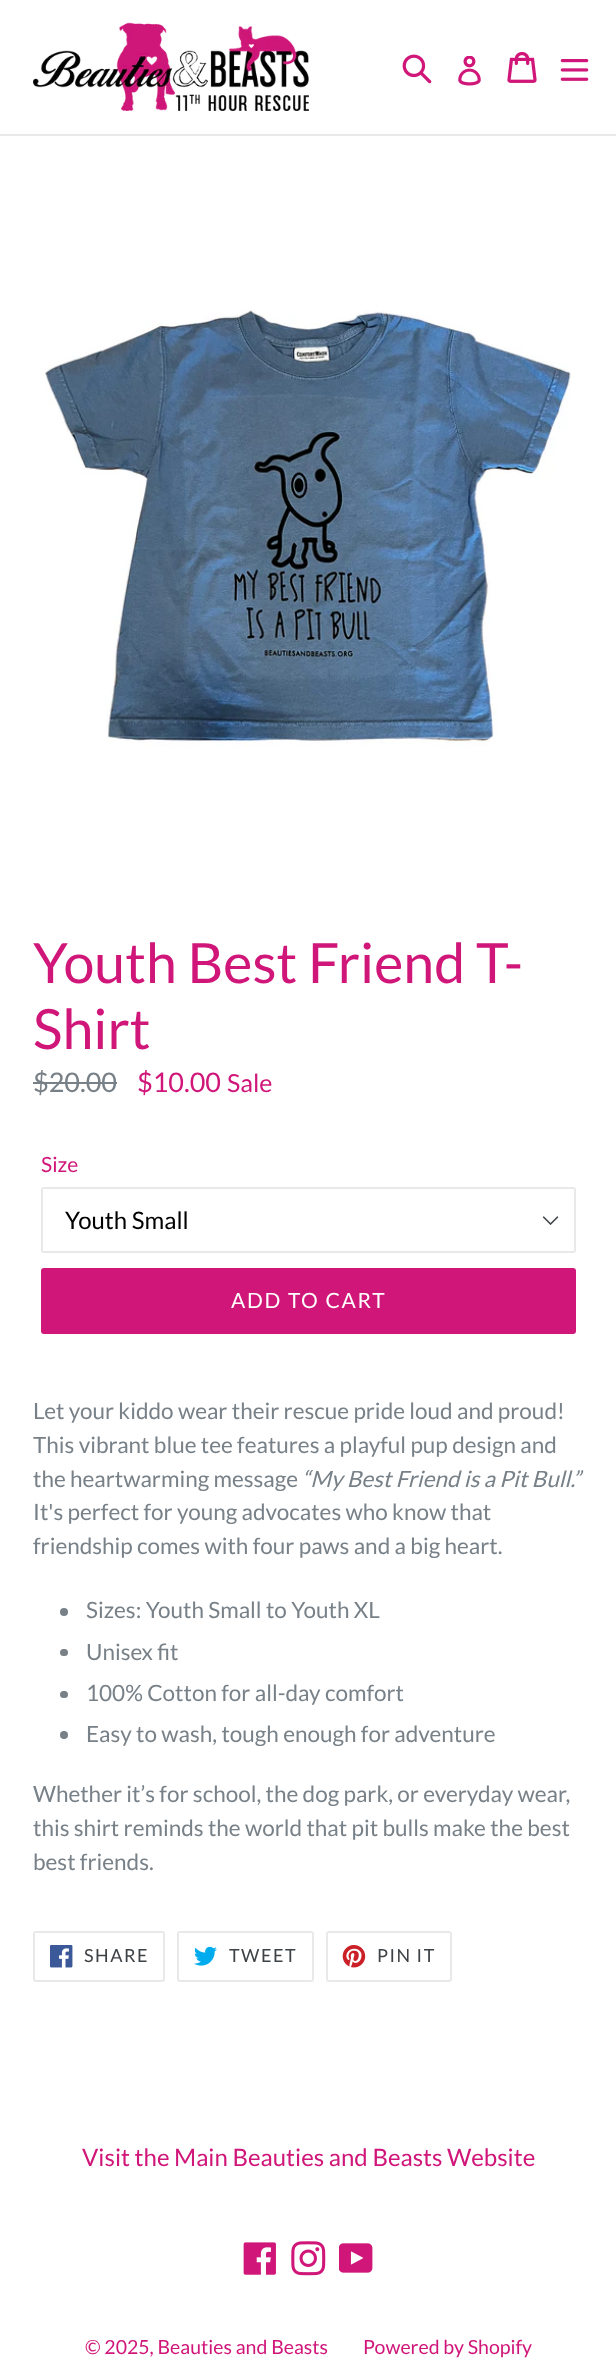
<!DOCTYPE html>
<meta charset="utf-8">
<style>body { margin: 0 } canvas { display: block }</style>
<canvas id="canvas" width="616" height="2370"></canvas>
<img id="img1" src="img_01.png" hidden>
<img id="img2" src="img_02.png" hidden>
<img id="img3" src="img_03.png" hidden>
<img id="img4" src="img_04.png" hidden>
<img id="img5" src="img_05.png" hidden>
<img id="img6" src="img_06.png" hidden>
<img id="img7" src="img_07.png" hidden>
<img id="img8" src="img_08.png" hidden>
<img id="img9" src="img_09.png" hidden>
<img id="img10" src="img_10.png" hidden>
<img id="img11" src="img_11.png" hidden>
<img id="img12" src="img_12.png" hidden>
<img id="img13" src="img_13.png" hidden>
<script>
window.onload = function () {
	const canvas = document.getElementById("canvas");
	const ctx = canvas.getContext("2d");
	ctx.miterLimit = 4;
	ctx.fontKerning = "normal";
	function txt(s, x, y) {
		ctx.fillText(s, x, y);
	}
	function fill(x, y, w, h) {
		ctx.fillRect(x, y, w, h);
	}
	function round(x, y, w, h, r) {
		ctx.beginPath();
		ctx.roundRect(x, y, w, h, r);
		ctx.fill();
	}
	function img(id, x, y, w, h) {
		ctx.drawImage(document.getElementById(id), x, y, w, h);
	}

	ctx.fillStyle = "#FFFFFF";
	fill(0, 0, 616, 2370);
	ctx.fillStyle = "#E8E9EB";
	fill(0, 134, 616, 2);
	img("img1", 33, 22, 276, 89);
	img("img2", 402, 54, 30, 30);
	img("img3", 458, 56, 23, 30);
	img("img4", 507, 51, 30, 32);
	img("img5", 560, 59, 29, 22);
	img("img6", 45, 310, 526, 437);
	ctx.fillStyle = "#788188";
	fill(33, 1082, 84, 2);
	img("img7", 542, 1216, 17, 9);
	ctx.beginPath();
	ctx.roundRect(42, 1188, 533, 64, 2);
	ctx.strokeStyle = "#E8E9EB";
	ctx.lineWidth = 2;
	ctx.stroke();
	ctx.fillStyle = "#D01679";
	round(41, 1268, 535, 66, 3);
	ctx.fillStyle = "#788188";
	ctx.beginPath();
	ctx.arc(64, 1612, 4, 0, Math.PI * 2);
	ctx.fill();
	round(60, 1649, 8, 7, 3.5);
	round(60, 1691, 8, 7, 3.5);
	ctx.beginPath();
	ctx.arc(64, 1735, 4, 0, Math.PI * 2);
	ctx.fill();
	ctx.beginPath();
	ctx.roundRect(34, 1932, 130, 49, 2);
	ctx.stroke();
	img("img8", 50, 1945, 23, 23);
	ctx.beginPath();
	ctx.roundRect(178, 1932, 135, 49, 2);
	ctx.stroke();
	img("img9", 194, 1946, 23, 20);
	ctx.beginPath();
	ctx.roundRect(327, 1932, 124, 49, 2);
	ctx.stroke();
	img("img10", 342, 1945, 24, 23);
	img("img11", 243, 2242, 33, 33);
	img("img12", 291, 2241, 35, 35);
	img("img13", 339, 2243, 34, 30);
	ctx.font = "55.5px Lato";
	ctx.fillStyle = "#D01679";
	txt("Youth Best Friend T-", 33, 983);
	txt("Shirt", 33, 1049);
	ctx.font = "27px Lato";
	ctx.fillStyle = "#788188";
	txt("$20.00", 33, 1092);
	ctx.fillStyle = "#D01679";
	txt("$10.00", 137, 1092);
	ctx.font = "25px Lato";
	txt("Sale", 227, 1092);
	ctx.font = "21px Lato";
	txt("Size", 41, 1172);
	ctx.font = "24px Lato";
	ctx.fillStyle = "#000000";
	txt("Youth Small", 65, 1229);
	ctx.letterSpacing = "1.75px";
	ctx.font = "21px Lato";
	ctx.fillStyle = "#FFFFFF";
	txt("ADD TO CART", 231, 1308);
	ctx.letterSpacing = "0px";
	ctx.font = "22.5px Lato";
	ctx.fillStyle = "#788188";
	txt("Let your kiddo wear their rescue pride loud and proud!", 33, 1419);
	txt("This vibrant blue tee features a playful pup design and", 33, 1453);
	txt("the heartwarming message", 33, 1487);
	ctx.font = "italic 22.5px Lato";
	txt("“My Best Friend is a Pit Bull.”", 302, 1487);
	ctx.font = "22.5px Lato";
	txt("It's perfect for young advocates who know that", 33, 1520);
	txt("friendship comes with four paws and a big heart.", 33, 1554);
	txt("Sizes: Youth Small to Youth XL", 86, 1618);
	txt("Unisex fit", 86, 1660);
	txt("100% Cotton for all-day comfort", 86, 1701);
	txt("Easy to wash, tough enough for adventure", 86, 1742);
	txt("Whether it’s for school, the dog park, or everyday wear,", 33, 1802);
	txt("this shirt reminds the world that pit bulls make the best", 33, 1836);
	txt("best friends.", 33, 1870);
	ctx.letterSpacing = "1.5px";
	ctx.font = "18px Lato";
	ctx.fillStyle = "#3D4246";
	txt("SHARE", 84, 1962);
	txt("TWEET", 229, 1962);
	txt("PIN IT", 377, 1962);
	ctx.letterSpacing = "0px";
	ctx.font = "24px Lato";
	ctx.fillStyle = "#D01679";
	txt("Visit the Main Beauties and Beasts Website", 82, 2166);
	ctx.font = "19.5px Lato";
	txt("© 2025, Beauties and Beasts", 85, 2354);
	txt("Powered by Shopify", 363, 2354);
};
</script>
